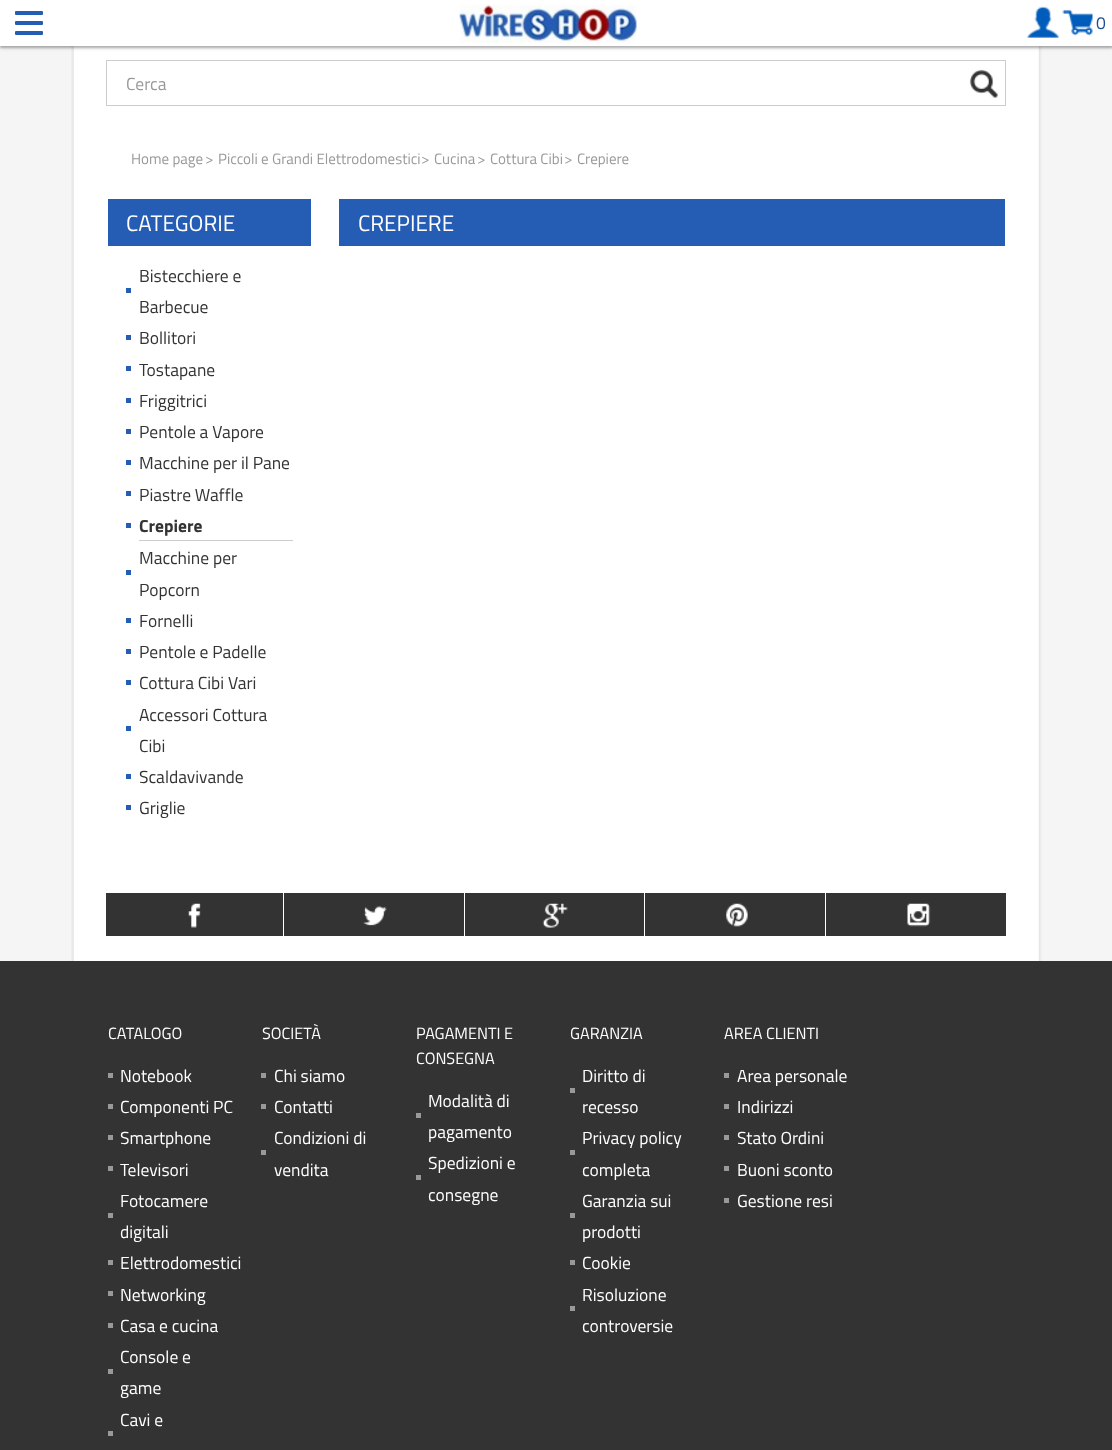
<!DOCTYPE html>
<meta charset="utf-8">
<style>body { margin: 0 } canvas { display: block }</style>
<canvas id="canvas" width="1112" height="1450"></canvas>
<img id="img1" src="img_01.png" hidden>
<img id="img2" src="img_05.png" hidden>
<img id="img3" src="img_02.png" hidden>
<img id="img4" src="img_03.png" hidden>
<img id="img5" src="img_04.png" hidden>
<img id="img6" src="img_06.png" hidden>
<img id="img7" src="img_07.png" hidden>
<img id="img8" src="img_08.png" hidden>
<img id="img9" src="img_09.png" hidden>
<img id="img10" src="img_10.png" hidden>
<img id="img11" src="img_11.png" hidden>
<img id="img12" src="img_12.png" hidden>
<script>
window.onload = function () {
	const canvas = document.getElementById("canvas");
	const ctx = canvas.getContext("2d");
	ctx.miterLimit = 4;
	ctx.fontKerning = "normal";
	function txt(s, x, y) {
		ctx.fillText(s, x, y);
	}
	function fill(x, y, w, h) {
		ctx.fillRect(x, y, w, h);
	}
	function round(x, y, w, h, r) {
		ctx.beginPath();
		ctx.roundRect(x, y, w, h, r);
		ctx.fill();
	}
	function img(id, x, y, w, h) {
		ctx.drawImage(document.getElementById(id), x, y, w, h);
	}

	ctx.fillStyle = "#F5F5F5";
	fill(0, 0, 1112, 1450);
	img("img1", 71, 120, 971, 748);
	img("img2", 71, 46, 971, 74);
	ctx.fillStyle = "rgba(0, 0, 0, 0.24)";
	ctx.filter = "blur(1px)";
	ctx.beginPath();
	ctx.rect(0, 1, 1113, 47);
	ctx.fill();
	ctx.filter = "none";
	ctx.fillStyle = "rgba(0, 0, 0, 0.12)";
	ctx.filter = "blur(2px)";
	ctx.beginPath();
	ctx.rect(0, 1, 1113, 47);
	ctx.fill();
	ctx.filter = "none";
	ctx.fillStyle = "#FFFFFF";
	fill(0, 0, 1112, 46);
	ctx.fillStyle = "#245DB3";
	round(15, 11, 28, 4, 1);
	round(15, 21, 28, 4, 1);
	round(15, 31, 28, 4, 1);
	img("img3", 459, 4, 178, 39);
	img("img4", 1026, 6, 33, 32);
	img("img5", 1062, 9, 31, 27);
	ctx.fillStyle = "#CCCCCC";
	fill(106, 60, 900, 1);
	fill(106, 105, 857, 1);
	fill(106, 60, 1, 46);
	fill(1005, 60, 1, 46);
	fill(961, 105, 45, 1);
	img("img6", 969, 69, 29, 29);
	ctx.fillStyle = "#245DB3";
	fill(108, 199, 203, 47);
	fill(126, 288, 5, 5);
	fill(126, 335, 5, 5);
	fill(126, 366, 5, 5);
	fill(126, 398, 5, 5);
	fill(126, 429, 5, 5);
	fill(126, 460, 5, 5);
	fill(126, 491, 5, 5);
	fill(126, 523, 5, 5);
	ctx.fillStyle = "#CCCCCC";
	fill(139, 540, 154, 1);
	ctx.fillStyle = "#245DB3";
	fill(126, 570, 5, 5);
	fill(126, 618, 5, 5);
	fill(126, 649, 5, 5);
	fill(126, 680, 5, 5);
	fill(126, 726, 5, 5);
	fill(126, 774, 5, 5);
	fill(126, 805, 5, 5);
	fill(339, 199, 666, 47);
	img("img7", 71, 868, 971, 93);
	ctx.fillStyle = "#333333";
	fill(106, 893, 900, 43);
	img("img8", 188, 903, 13, 25);
	ctx.fillStyle = "#FFFFFF";
	fill(283, 893, 1, 43);
	img("img9", 363, 906, 24, 20);
	fill(464, 893, 1, 43);
	img("img10", 542, 903, 26, 25);
	fill(644, 893, 1, 43);
	img("img11", 726, 903, 22, 24);
	fill(825, 893, 1, 43);
	img("img12", 907, 903, 24, 24);
	ctx.fillStyle = "#333333";
	fill(0, 961, 1112, 489);
	ctx.fillStyle = "#999999";
	fill(108, 1073, 5, 5);
	fill(108, 1104, 5, 5);
	fill(108, 1135, 5, 5);
	fill(108, 1166, 5, 5);
	fill(108, 1213, 5, 5);
	fill(108, 1260, 5, 5);
	fill(108, 1291, 5, 5);
	fill(108, 1323, 5, 5);
	fill(108, 1369, 5, 5);
	fill(108, 1431, 5, 5);
	fill(261, 1073, 5, 5);
	fill(261, 1104, 5, 5);
	fill(261, 1150, 5, 5);
	fill(416, 1113, 5, 5);
	fill(416, 1175, 5, 5);
	fill(570, 1088, 5, 5);
	fill(570, 1150, 5, 5);
	fill(570, 1213, 5, 5);
	fill(570, 1260, 5, 5);
	fill(570, 1306, 5, 5);
	fill(724, 1073, 5, 5);
	fill(724, 1104, 5, 5);
	fill(724, 1135, 5, 5);
	fill(724, 1166, 5, 5);
	fill(724, 1198, 5, 5);
	ctx.font = "17.5px Titillium Web";
	ctx.fillStyle = "#1E4E95";
	txt("0", 1096, 29);
	ctx.fillStyle = "#999999";
	txt("Cerca", 126, 90);
	ctx.font = "15px Titillium Web";
	txt("Home page", 131, 164);
	txt(">", 205, 164);
	txt("Piccoli e Grandi Elettrodomestici", 218, 164);
	txt(">", 421, 164);
	txt("Cucina", 434, 164);
	txt(">", 477, 164);
	txt("Cottura Cibi", 490, 164);
	txt(">", 564, 164);
	txt("Crepiere", 577, 164);
	ctx.font = "22.5px Titillium Web";
	ctx.fillStyle = "#FFFFFF";
	txt("CATEGORIE", 126, 231);
	ctx.font = "17.5px Titillium Web";
	ctx.fillStyle = "#333333";
	txt("Bistecchiere e", 139, 282);
	txt("Barbecue", 139, 313);
	txt("Bollitori", 139, 344);
	txt("Tostapane", 139, 376);
	txt("Friggitrici", 139, 407);
	txt("Pentole a Vapore", 139, 438);
	txt("Macchine per il Pane", 139, 469);
	txt("Piastre Waffle", 139, 501);
	ctx.font = "bold 17.5px Titillium Web";
	txt("Crepiere", 139, 532);
	ctx.font = "17.5px Titillium Web";
	txt("Macchine per", 139, 564);
	txt("Popcorn", 139, 596);
	txt("Fornelli", 139, 627);
	txt("Pentole e Padelle", 139, 658);
	txt("Cottura Cibi Vari", 139, 689);
	txt("Accessori Cottura", 139, 721);
	txt("Cibi", 139, 752);
	txt("Scaldavivande", 139, 783);
	txt("Griglie", 139, 814);
	ctx.font = "22.5px Titillium Web";
	ctx.fillStyle = "#FFFFFF";
	txt("CREPIERE", 358, 231);
	ctx.font = "16.25px Titillium Web";
	txt("CATALOGO", 108, 1039);
	ctx.font = "17.5px Titillium Web";
	txt("Notebook", 120, 1082);
	txt("Componenti PC", 120, 1113);
	txt("Smartphone", 120, 1144);
	txt("Televisori", 120, 1176);
	txt("Fotocamere", 120, 1207);
	txt("digitali", 120, 1238);
	txt("Elettrodomestici", 120, 1269);
	txt("Networking", 120, 1301);
	txt("Casa e cucina", 120, 1332);
	txt("Console e", 120, 1363);
	txt("game", 120, 1394);
	txt("Cavi e", 120, 1426);
	ctx.font = "16.25px Titillium Web";
	txt("SOCIETÀ", 262, 1039);
	ctx.font = "17.5px Titillium Web";
	txt("Chi siamo", 274, 1082);
	txt("Contatti", 274, 1113);
	txt("Condizioni di", 274, 1144);
	txt("vendita", 274, 1176);
	ctx.font = "16.25px Titillium Web";
	txt("PAGAMENTI E", 416, 1039);
	txt("CONSEGNA", 416, 1064);
	ctx.font = "17.5px Titillium Web";
	txt("Modalità di", 428, 1107);
	txt("pagamento", 428, 1138);
	txt("Spedizioni e", 428, 1169);
	txt("consegne", 428, 1201);
	ctx.font = "16.25px Titillium Web";
	txt("GARANZIA", 570, 1039);
	ctx.font = "17.5px Titillium Web";
	txt("Diritto di", 582, 1082);
	txt("recesso", 582, 1113);
	txt("Privacy policy", 582, 1144);
	txt("completa", 582, 1176);
	txt("Garanzia sui", 582, 1207);
	txt("prodotti", 582, 1238);
	txt("Cookie", 582, 1269);
	txt("Risoluzione", 582, 1301);
	txt("controversie", 582, 1332);
	ctx.font = "16.25px Titillium Web";
	txt("AREA CLIENTI", 724, 1039);
	ctx.font = "17.5px Titillium Web";
	txt("Area personale", 737, 1082);
	txt("Indirizzi", 737, 1113);
	txt("Stato Ordini", 737, 1144);
	txt("Buoni sconto", 737, 1176);
	txt("Gestione resi", 737, 1207);
};
</script>
